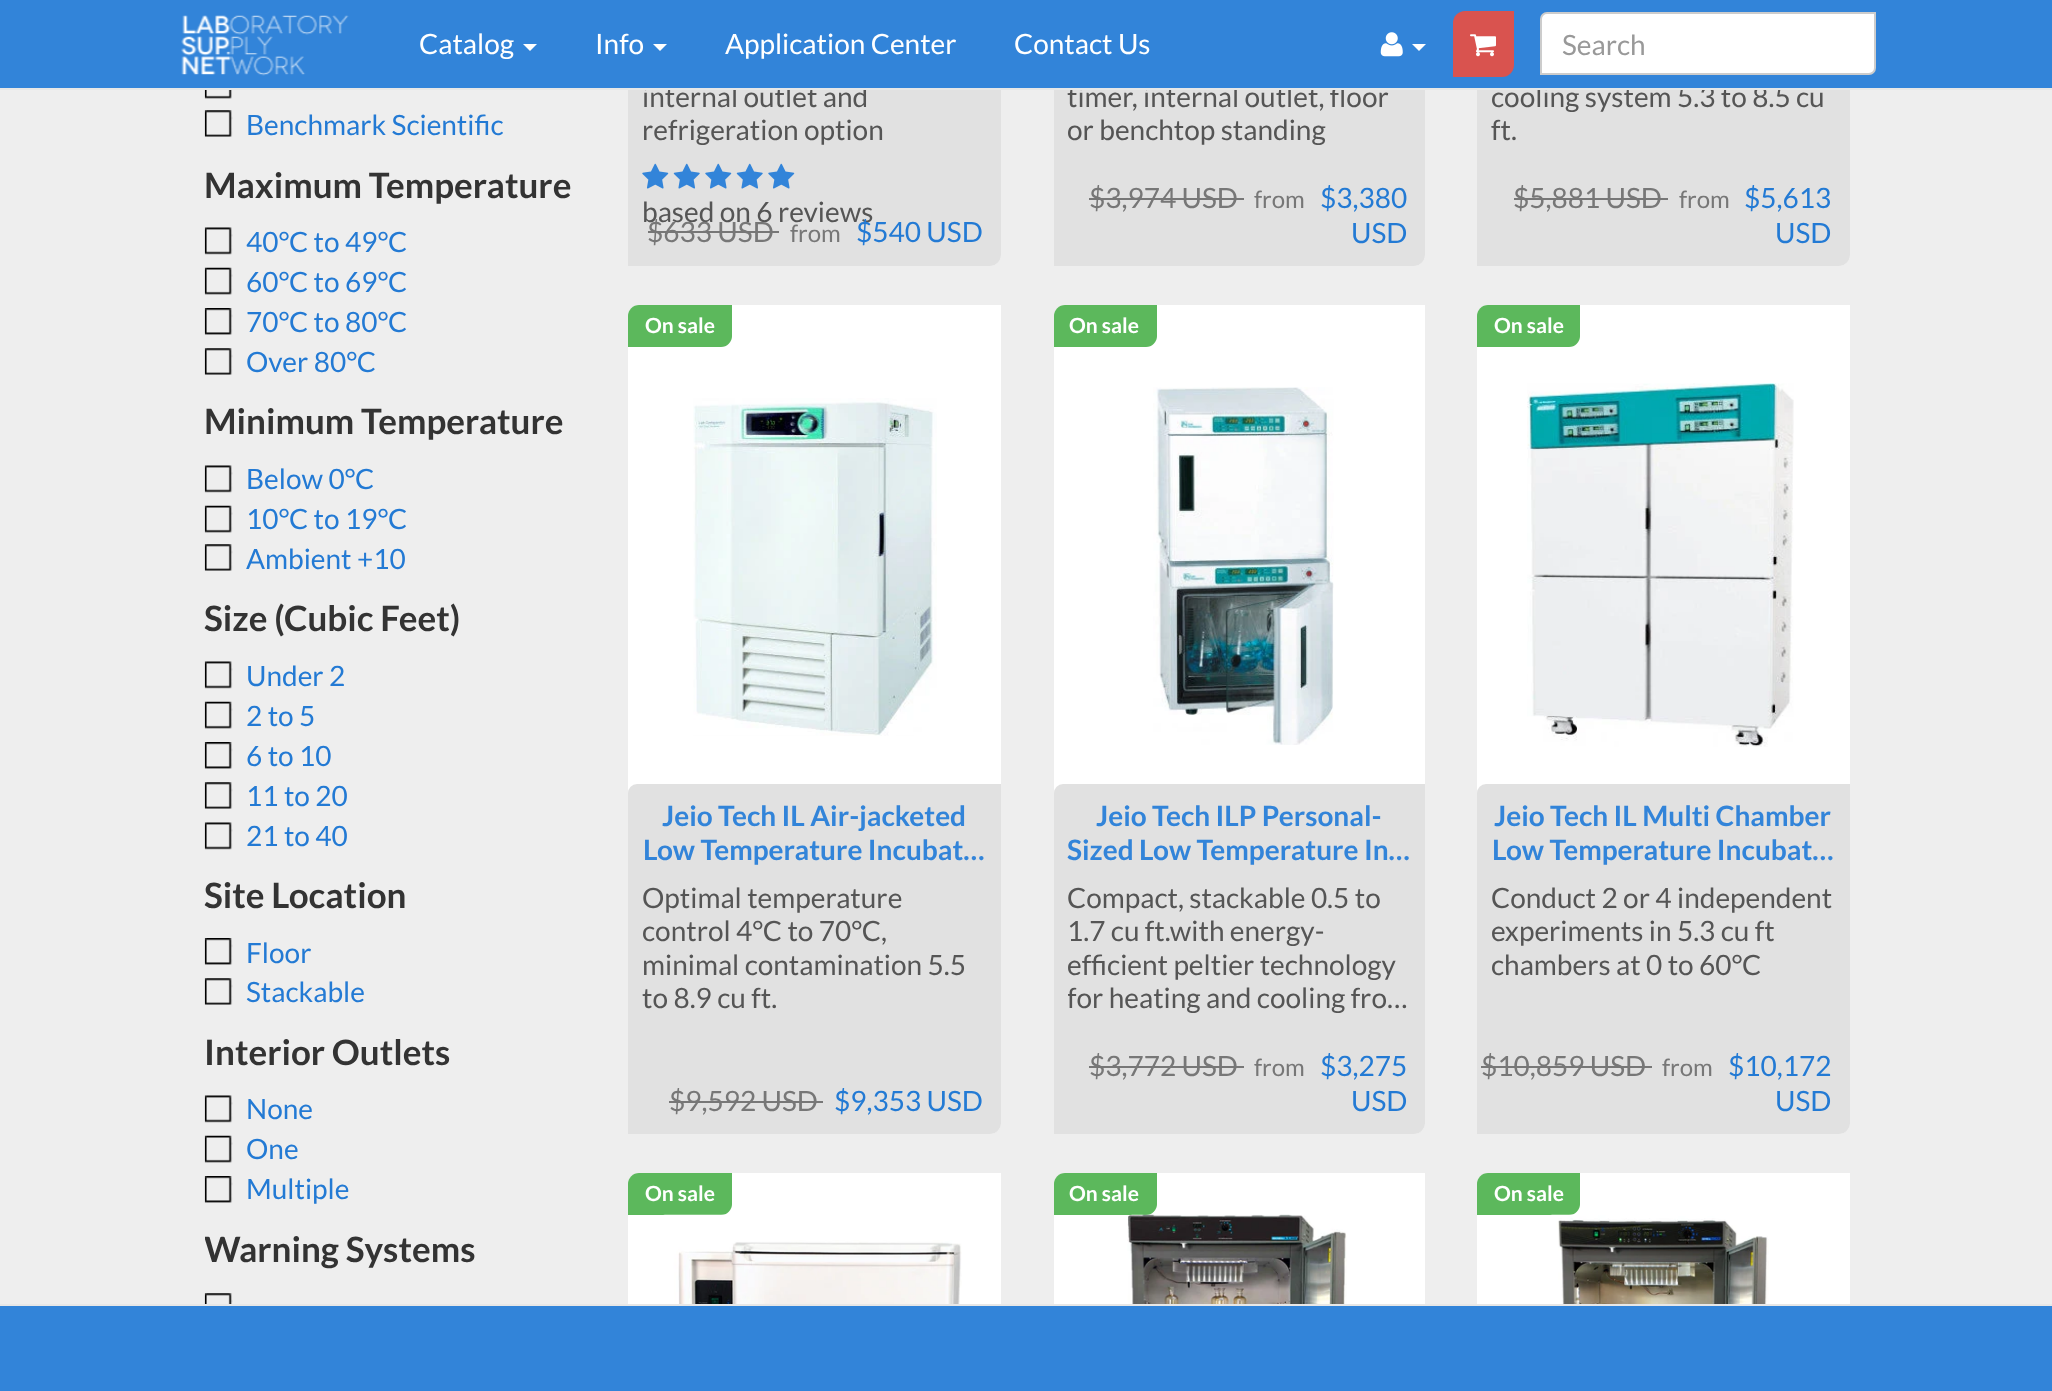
<!DOCTYPE html>
<meta charset="utf-8">
<style>body { margin: 0 } canvas { display: block }</style>
<canvas id="canvas" width="2052" height="1391"></canvas>
<img id="img1" src="img_04.png" hidden>
<img id="img2" src="img_05.png" hidden>
<img id="img3" src="img_06.png" hidden>
<img id="img4" src="img_07.png" hidden>
<img id="img5" src="img_08.png" hidden>
<img id="img6" src="img_09.png" hidden>
<img id="img7" src="img_10.png" hidden>
<img id="img8" src="img_11.png" hidden>
<img id="img9" src="img_12.png" hidden>
<img id="img10" src="img_13.png" hidden>
<img id="img11" src="img_14.png" hidden>
<img id="img12" src="img_15.png" hidden>
<img id="img13" src="img_16.png" hidden>
<img id="img14" src="img_17.png" hidden>
<img id="img15" src="img_03.png" hidden>
<img id="img16" src="img_02.png" hidden>
<img id="img17" src="img_01.png" hidden>
<script>
window.onload = function () {
	const canvas = document.getElementById("canvas");
	const ctx = canvas.getContext("2d");
	ctx.miterLimit = 4;
	ctx.fontKerning = "normal";
	function txt(s, x, y) {
		ctx.fillText(s, x, y);
	}
	function fill(x, y, w, h) {
		ctx.fillRect(x, y, w, h);
	}
	function img(id, x, y, w, h) {
		ctx.drawImage(document.getElementById(id), x, y, w, h);
	}

	ctx.fillStyle = "#EEEEEE";
	fill(0, 0, 2052, 1391);
	img("img1", 204, 90, 28, 9);
	img("img2", 204, 110, 29, 27);
	img("img3", 204, 227, 29, 28);
	img("img4", 204, 267, 29, 28);
	img("img5", 204, 308, 29, 27);
	img("img2", 204, 348, 29, 27);
	img("img3", 204, 465, 29, 28);
	img("img4", 204, 505, 29, 28);
	img("img2", 204, 544, 29, 27);
	img("img3", 204, 661, 29, 28);
	img("img4", 204, 701, 29, 28);
	img("img5", 204, 742, 29, 27);
	img("img2", 204, 782, 29, 27);
	img("img3", 204, 822, 29, 28);
	img("img5", 204, 938, 29, 27);
	img("img2", 204, 978, 29, 27);
	img("img3", 204, 1095, 29, 28);
	img("img4", 204, 1135, 29, 28);
	img("img5", 204, 1176, 29, 27);
	img("img6", 204, 1293, 29, 11);
	ctx.fillStyle = "#FFFFFF";
	ctx.beginPath();
	ctx.moveTo(639, -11);
	ctx.lineTo(1001, -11);
	ctx.lineTo(1001, 255);
	ctx.bezierCurveTo(1001, 261, 996, 266, 990, 266);
	ctx.lineTo(628, 266);
	ctx.lineTo(628, 0);
	ctx.bezierCurveTo(628, -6, 633, -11, 639, -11);
	ctx.closePath();
	ctx.fill();
	ctx.fillStyle = "rgba(220, 220, 220, 0.85)";
	ctx.beginPath();
	ctx.moveTo(637, -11);
	ctx.lineTo(1001, -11);
	ctx.lineTo(1001, 255);
	ctx.bezierCurveTo(1001, 261, 996, 266, 990, 266);
	ctx.lineTo(628, 266);
	ctx.lineTo(628, -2);
	ctx.bezierCurveTo(628, -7, 632, -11, 637, -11);
	ctx.closePath();
	ctx.fill();
	img("img7", 642, 163, 27, 26);
	img("img8", 673, 163, 27, 26);
	img("img7", 705, 163, 27, 26);
	img("img8", 736, 163, 27, 26);
	img("img7", 768, 163, 27, 26);
	ctx.fillStyle = "#777777";
	fill(648, 231, 131, 2);
	ctx.fillStyle = "#FFFFFF";
	ctx.beginPath();
	ctx.moveTo(1065, -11);
	ctx.lineTo(1425, -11);
	ctx.lineTo(1425, 255);
	ctx.bezierCurveTo(1425, 261, 1420, 266, 1414, 266);
	ctx.lineTo(1054, 266);
	ctx.lineTo(1054, 0);
	ctx.bezierCurveTo(1054, -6, 1059, -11, 1065, -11);
	ctx.closePath();
	ctx.fill();
	ctx.fillStyle = "rgba(220, 220, 220, 0.85)";
	ctx.beginPath();
	ctx.moveTo(1063, -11);
	ctx.lineTo(1425, -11);
	ctx.lineTo(1425, 255);
	ctx.bezierCurveTo(1425, 261, 1420, 266, 1414, 266);
	ctx.lineTo(1054, 266);
	ctx.lineTo(1054, -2);
	ctx.bezierCurveTo(1054, -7, 1058, -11, 1063, -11);
	ctx.closePath();
	ctx.fill();
	ctx.fillStyle = "#777777";
	fill(1089, 198, 155, 2);
	ctx.fillStyle = "#FFFFFF";
	ctx.beginPath();
	ctx.moveTo(1488, -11);
	ctx.lineTo(1850, -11);
	ctx.lineTo(1850, 255);
	ctx.bezierCurveTo(1850, 261, 1845, 266, 1839, 266);
	ctx.lineTo(1477, 266);
	ctx.lineTo(1477, 0);
	ctx.bezierCurveTo(1477, -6, 1482, -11, 1488, -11);
	ctx.closePath();
	ctx.fill();
	ctx.fillStyle = "rgba(220, 220, 220, 0.85)";
	ctx.beginPath();
	ctx.moveTo(1486, -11);
	ctx.lineTo(1850, -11);
	ctx.lineTo(1850, 255);
	ctx.bezierCurveTo(1850, 261, 1845, 266, 1839, 266);
	ctx.lineTo(1477, 266);
	ctx.lineTo(1477, -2);
	ctx.bezierCurveTo(1477, -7, 1481, -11, 1486, -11);
	ctx.closePath();
	ctx.fill();
	ctx.fillStyle = "#777777";
	fill(1514, 198, 154, 2);
	ctx.fillStyle = "#FFFFFF";
	ctx.beginPath();
	ctx.roundRect(628, 305, 373, 829, [11, 0, 11, 0]);
	ctx.fill();
	ctx.fillStyle = "#5CB85C";
	ctx.beginPath();
	ctx.roundRect(628, 305, 104, 42, [11, 0, 11, 0]);
	ctx.fill();
	img("img9", 693, 398, 244, 338);
	ctx.fillStyle = "rgba(220, 220, 220, 0.85)";
	ctx.beginPath();
	ctx.roundRect(628, 784, 373, 350, [9, 0, 11, 0]);
	ctx.fill();
	ctx.fillStyle = "#777777";
	fill(669, 1101, 154, 2);
	ctx.fillStyle = "#FFFFFF";
	ctx.beginPath();
	ctx.roundRect(1054, 305, 371, 829, [11, 0, 11, 0]);
	ctx.fill();
	ctx.fillStyle = "#5CB85C";
	ctx.beginPath();
	ctx.roundRect(1054, 305, 103, 42, [11, 0, 11, 0]);
	ctx.fill();
	img("img10", 1153, 387, 181, 358);
	ctx.fillStyle = "rgba(220, 220, 220, 0.85)";
	ctx.beginPath();
	ctx.roundRect(1054, 784, 371, 350, [9, 0, 11, 0]);
	ctx.fill();
	ctx.fillStyle = "#777777";
	fill(1089, 1066, 155, 2);
	ctx.fillStyle = "#FFFFFF";
	ctx.beginPath();
	ctx.roundRect(1477, 305, 373, 829, [11, 0, 11, 0]);
	ctx.fill();
	ctx.fillStyle = "#5CB85C";
	ctx.beginPath();
	ctx.roundRect(1477, 305, 103, 42, [11, 0, 11, 0]);
	ctx.fill();
	img("img11", 1527, 383, 267, 364);
	ctx.fillStyle = "rgba(220, 220, 220, 0.85)";
	ctx.beginPath();
	ctx.roundRect(1477, 784, 373, 350, [9, 0, 11, 0]);
	ctx.fill();
	ctx.fillStyle = "#777777";
	fill(1481, 1066, 171, 2);
	ctx.fillStyle = "#FFFFFF";
	ctx.beginPath();
	ctx.moveTo(639, 1173);
	ctx.lineTo(1001, 1173);
	ctx.lineTo(1001, 1391);
	ctx.bezierCurveTo(1001, 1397, 996, 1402, 990, 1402);
	ctx.lineTo(628, 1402);
	ctx.lineTo(628, 1184);
	ctx.bezierCurveTo(628, 1178, 633, 1173, 639, 1173);
	ctx.closePath();
	ctx.fill();
	ctx.fillStyle = "#5CB85C";
	ctx.beginPath();
	ctx.roundRect(628, 1173, 104, 42, [11, 0, 11, 0]);
	ctx.fill();
	img("img12", 663, 1214, 299, 90);
	ctx.fillStyle = "#FFFFFF";
	ctx.beginPath();
	ctx.moveTo(1065, 1173);
	ctx.lineTo(1425, 1173);
	ctx.lineTo(1425, 1391);
	ctx.bezierCurveTo(1425, 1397, 1420, 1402, 1414, 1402);
	ctx.lineTo(1054, 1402);
	ctx.lineTo(1054, 1184);
	ctx.bezierCurveTo(1054, 1178, 1059, 1173, 1065, 1173);
	ctx.closePath();
	ctx.fill();
	ctx.fillStyle = "#5CB85C";
	ctx.beginPath();
	ctx.roundRect(1054, 1173, 103, 42, [11, 0, 11, 0]);
	ctx.fill();
	img("img13", 1127, 1214, 220, 90);
	ctx.fillStyle = "#FFFFFF";
	ctx.beginPath();
	ctx.moveTo(1488, 1173);
	ctx.lineTo(1850, 1173);
	ctx.lineTo(1850, 1391);
	ctx.bezierCurveTo(1850, 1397, 1845, 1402, 1839, 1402);
	ctx.lineTo(1477, 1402);
	ctx.lineTo(1477, 1184);
	ctx.bezierCurveTo(1477, 1178, 1482, 1173, 1488, 1173);
	ctx.closePath();
	ctx.fill();
	ctx.fillStyle = "#5CB85C";
	ctx.beginPath();
	ctx.roundRect(1477, 1173, 103, 42, [11, 0, 11, 0]);
	ctx.fill();
	img("img14", 1550, 1214, 219, 90);
	ctx.fillStyle = "#3284D9";
	fill(0, 1306, 2052, 85);
	ctx.fillStyle = "#E7E7E7";
	fill(0, 1304, 2052, 2);
	ctx.font = "28px Lato";
	ctx.fillStyle = "#237AD4";
	txt("Benchmark Scientific", 246, 135);
	ctx.font = "bold 35px Lato";
	ctx.fillStyle = "#333333";
	txt("Maximum Temperature", 204, 198);
	ctx.font = "28px Lato";
	ctx.fillStyle = "#237AD4";
	txt("40°C to 49°C", 246, 252);
	txt("60°C to 69°C", 246, 292);
	txt("70°C to 80°C", 246, 332);
	txt("Over 80°C", 246, 372);
	ctx.font = "bold 35px Lato";
	ctx.fillStyle = "#333333";
	txt("Minimum Temperature", 204, 434);
	ctx.font = "28px Lato";
	ctx.fillStyle = "#237AD4";
	txt("Below 0°C", 246, 489);
	txt("10°C to 19°C", 246, 529);
	txt("Ambient +10", 246, 569);
	ctx.font = "bold 35px Lato";
	ctx.fillStyle = "#333333";
	txt("Size (Cubic Feet)", 204, 631);
	ctx.font = "28px Lato";
	ctx.fillStyle = "#237AD4";
	txt("Under 2", 246, 686);
	txt("2 to 5", 246, 726);
	txt("6 to 10", 246, 766);
	txt("11 to 20", 246, 806);
	txt("21 to 40", 246, 846);
	ctx.font = "bold 35px Lato";
	ctx.fillStyle = "#333333";
	txt("Site Location", 204, 908);
	ctx.font = "28px Lato";
	ctx.fillStyle = "#237AD4";
	txt("Floor", 246, 963);
	txt("Stackable", 246, 1002);
	ctx.font = "bold 35px Lato";
	ctx.fillStyle = "#333333";
	txt("Interior Outlets", 204, 1065);
	ctx.font = "28px Lato";
	ctx.fillStyle = "#237AD4";
	txt("None", 246, 1119);
	txt("One", 246, 1159);
	txt("Multiple", 246, 1199);
	ctx.save();
	ctx.beginPath();
	ctx.rect(205, 0, 371, 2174);
	ctx.clip();
	ctx.font = "bold 35px Lato";
	ctx.fillStyle = "#333333";
	txt("Warning Systems", 204, 1262);
	ctx.restore();
	ctx.fillStyle = "#555555";
	txt("internal outlet and", 642, 107);
	txt("refrigeration option", 642, 140);
	txt("based on 6 reviews", 642, 222);
	ctx.fillStyle = "#777777";
	txt("$633 USD", 647, 242);
	ctx.font = "24px Lato";
	txt("from", 790, 242);
	ctx.font = "28px Lato";
	ctx.fillStyle = "#237AD4";
	txt("$540 USD", 856, 242);
	ctx.fillStyle = "#555555";
	txt("timer, internal outlet, floor", 1067, 107);
	ctx.save();
	ctx.beginPath();
	ctx.rect(1068, 0, 343, 145);
	ctx.clip();
	txt("or benchtop standing", 1067, 140);
	ctx.restore();
	ctx.fillStyle = "#777777";
	txt("$3,974 USD", 1089, 208);
	ctx.font = "24px Lato";
	txt("from", 1254, 208);
	ctx.font = "28px Lato";
	ctx.fillStyle = "#237AD4";
	txt("$3,380", 1320, 208);
	txt("USD", 1351, 243);
	ctx.fillStyle = "#555555";
	txt("cooling system 5.3 to 8.5 cu", 1491, 107);
	ctx.fillStyle = "#3284D9";
	fill(0, 0, 2052, 88);
	ctx.fillStyle = "#D9534F";
	ctx.beginPath();
	ctx.roundRect(1453, 11, 61, 66, [12, 0, 12, 0]);
	ctx.fill();
	img("img15", 1470, 34, 26, 23);
	img("img16", 1380, 32, 23, 25);
	ctx.fillStyle = "#FFFFFF";
	ctx.beginPath();
	ctx.moveTo(1412, 44);
	ctx.lineTo(1426, 44);
	ctx.lineTo(1419, 51);
	ctx.closePath();
	ctx.fill();
	txt("Contact Us", 1014, 54);
	txt("Application Center", 725, 54);
	ctx.beginPath();
	ctx.moveTo(653, 44);
	ctx.lineTo(667, 44);
	ctx.lineTo(660, 51);
	ctx.closePath();
	ctx.fill();
	txt("Info", 595, 54);
	ctx.beginPath();
	ctx.moveTo(523, 44);
	ctx.lineTo(537, 44);
	ctx.lineTo(530, 51);
	ctx.closePath();
	ctx.fill();
	txt("Catalog", 419, 54);
	ctx.beginPath();
	ctx.roundRect(1541, 13, 334, 61, [6, 0, 6, 0]);
	ctx.fill();
	ctx.strokeStyle = "#CCCCCC";
	ctx.lineWidth = 2;
	ctx.stroke();
	ctx.fillStyle = "#999999";
	txt("Search", 1562, 55);
	img("img17", 181, 15, 168, 61);
	ctx.fillStyle = "#E7E7E7";
	fill(0, 88, 2052, 2);
	ctx.fillStyle = "#555555";
	txt("ft.", 1491, 140);
	ctx.fillStyle = "#777777";
	txt("$5,881 USD", 1513, 208);
	ctx.font = "24px Lato";
	txt("from", 1679, 208);
	ctx.font = "28px Lato";
	ctx.fillStyle = "#237AD4";
	txt("$5,613", 1744, 208);
	txt("USD", 1775, 243);
	ctx.font = "bold 21px Lato";
	ctx.fillStyle = "#FFFFFF";
	txt("On sale", 645, 333);
	ctx.font = "bold 28px Lato";
	ctx.fillStyle = "#3284D9";
	txt("Jeio Tech IL Air-jacketed", 662, 826);
	txt("Low Temperature Incubat…", 643, 860);
	ctx.font = "28px Lato";
	ctx.fillStyle = "#555555";
	txt("Optimal temperature", 642, 908);
	txt("control 4°C to 70°C,", 642, 941);
	txt("minimal contamination 5.5", 642, 975);
	txt("to 8.9 cu ft.", 642, 1008);
	ctx.fillStyle = "#777777";
	txt("$9,592 USD", 669, 1111);
	ctx.fillStyle = "#237AD4";
	txt("$9,353 USD", 834, 1111);
	ctx.font = "bold 21px Lato";
	ctx.fillStyle = "#FFFFFF";
	txt("On sale", 1069, 333);
	ctx.font = "bold 28px Lato";
	ctx.fillStyle = "#3284D9";
	txt("Jeio Tech ILP Personal-", 1096, 826);
	txt("Sized Low Temperature In…", 1067, 860);
	ctx.font = "28px Lato";
	ctx.fillStyle = "#555555";
	txt("Compact, stackable 0.5 to", 1067, 908);
	txt("1.7 cu ft.with energy-", 1067, 941);
	ctx.save();
	ctx.beginPath();
	ctx.rect(1068, 798, 343, 215);
	ctx.clip();
	txt("efficient peltier technology", 1067, 975);
	txt("for heating and cooling fro…", 1067, 1008);
	ctx.restore();
	ctx.fillStyle = "#777777";
	txt("$3,772 USD", 1089, 1076);
	ctx.font = "24px Lato";
	txt("from", 1254, 1076);
	ctx.font = "28px Lato";
	ctx.fillStyle = "#237AD4";
	txt("$3,275", 1320, 1076);
	txt("USD", 1351, 1111);
	ctx.font = "bold 21px Lato";
	ctx.fillStyle = "#FFFFFF";
	txt("On sale", 1494, 333);
	ctx.font = "bold 28px Lato";
	ctx.fillStyle = "#3284D9";
	txt("Jeio Tech IL Multi Chamber", 1494, 826);
	txt("Low Temperature Incubat…", 1492, 860);
	ctx.font = "28px Lato";
	ctx.fillStyle = "#555555";
	txt("Conduct 2 or 4 independent", 1491, 908);
	txt("experiments in 5.3 cu ft", 1491, 941);
	txt("chambers at 0 to 60°C", 1491, 975);
	ctx.fillStyle = "#777777";
	txt("$10,859 USD", 1481, 1076);
	ctx.font = "24px Lato";
	txt("from", 1662, 1076);
	ctx.font = "28px Lato";
	ctx.fillStyle = "#237AD4";
	txt("$10,172", 1728, 1076);
	txt("USD", 1775, 1111);
	ctx.font = "bold 21px Lato";
	ctx.fillStyle = "#FFFFFF";
	txt("On sale", 645, 1201);
	txt("On sale", 1069, 1201);
	txt("On sale", 1494, 1201);
};
</script>
